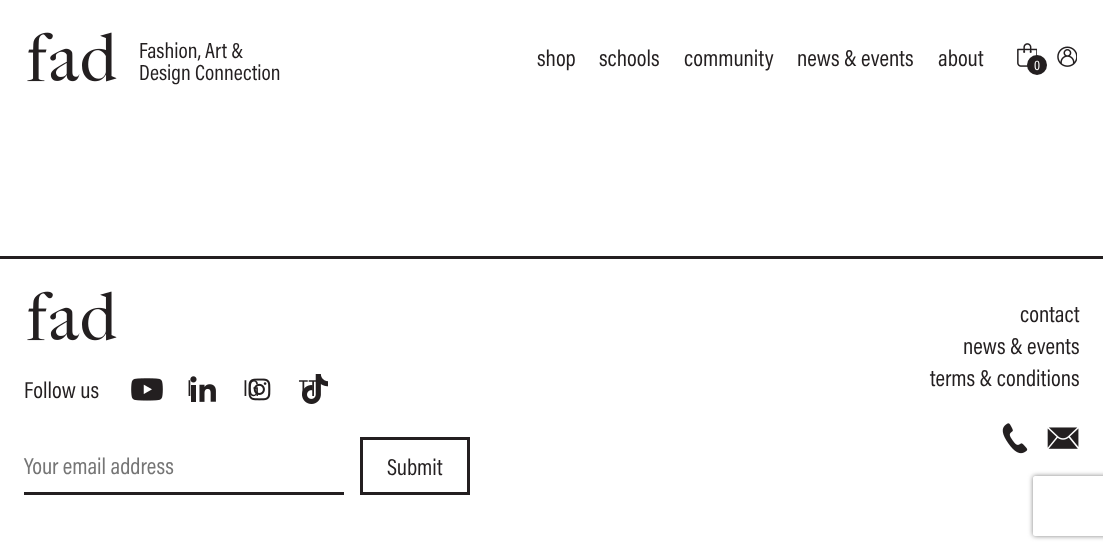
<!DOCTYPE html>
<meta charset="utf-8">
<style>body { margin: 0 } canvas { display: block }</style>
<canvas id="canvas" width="1103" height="550"></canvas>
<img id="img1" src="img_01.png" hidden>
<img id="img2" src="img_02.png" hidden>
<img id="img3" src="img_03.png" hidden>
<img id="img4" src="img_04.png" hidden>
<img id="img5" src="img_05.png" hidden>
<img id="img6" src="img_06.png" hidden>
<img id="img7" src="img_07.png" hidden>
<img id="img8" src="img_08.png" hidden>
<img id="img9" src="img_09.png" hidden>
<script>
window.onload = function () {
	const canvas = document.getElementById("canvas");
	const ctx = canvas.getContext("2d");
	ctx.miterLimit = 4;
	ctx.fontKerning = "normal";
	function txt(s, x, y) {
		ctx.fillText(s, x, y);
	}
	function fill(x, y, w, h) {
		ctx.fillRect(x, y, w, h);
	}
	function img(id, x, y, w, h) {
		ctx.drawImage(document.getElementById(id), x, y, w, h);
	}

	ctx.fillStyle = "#FFFFFF";
	fill(0, 0, 1103, 550);
	img("img1", 27, 32, 90, 50);
	img("img2", 1017, 43, 20, 24);
	ctx.fillStyle = "#231F20";
	ctx.beginPath();
	ctx.arc(1037, 65, 10, 0, Math.PI * 2);
	ctx.fill();
	img("img3", 1057, 46, 20, 21);
	fill(0, 256, 1103, 3);
	img("img4", 1002, 423, 26, 31);
	img("img5", 1047, 427, 32, 22);
	img("img1", 27, 291, 90, 50);
	img("img6", 131, 378, 32, 23);
	img("img7", 190, 376, 26, 26);
	img("img8", 248, 378, 23, 23);
	img("img9", 302, 374, 26, 30);
	fill(24, 492, 320, 3);
	ctx.strokeStyle = "#231F20";
	ctx.lineWidth = 3;
	ctx.strokeRect(361.5, 438.5, 107, 55);
	ctx.save();
	ctx.beginPath();
	ctx.moveTo(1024, 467);
	ctx.lineTo(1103, 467);
	ctx.lineTo(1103, 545);
	ctx.lineTo(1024, 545);
	ctx.closePath();
	ctx.moveTo(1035, 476);
	ctx.lineTo(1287, 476);
	ctx.bezierCurveTo(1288, 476, 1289, 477, 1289, 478);
	ctx.lineTo(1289, 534);
	ctx.bezierCurveTo(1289, 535, 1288, 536, 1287, 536);
	ctx.lineTo(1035, 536);
	ctx.bezierCurveTo(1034, 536, 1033, 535, 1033, 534);
	ctx.lineTo(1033, 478);
	ctx.bezierCurveTo(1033, 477, 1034, 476, 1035, 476);
	ctx.closePath();
	ctx.clip("evenodd");
	ctx.fillStyle = "#808080";
	ctx.filter = "blur(2.5px)";
	ctx.beginPath();
	ctx.roundRect(1033, 476, 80, 60, 2);
	ctx.fill();
	ctx.filter = "none";
	ctx.restore();
	ctx.font = "22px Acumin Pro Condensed";
	txt("Fashion, Art &", 139, 58);
	txt("Design Connection", 139, 80);
	ctx.font = "23.25px Acumin Pro Condensed";
	txt("shop", 537, 66);
	txt("schools", 599, 66);
	txt("community", 684, 66);
	txt("news & events", 797, 66);
	txt("about", 938, 66);
	ctx.font = "14px Acumin Pro Condensed";
	ctx.fillStyle = "#FFFFFF";
	txt("0", 1034, 70);
	ctx.font = "23.25px Acumin Pro Condensed";
	ctx.fillStyle = "#231F20";
	txt("contact", 1020, 322);
	txt("news & events", 963, 354);
	txt("terms & conditions", 930, 386);
	txt("Follow us", 24, 398);
	txt("I", 187, 396);
	txt("IG", 243, 396);
	txt("TT", 299, 396);
	ctx.fillStyle = "#757575";
	txt("Your email address", 24, 474);
	ctx.fillStyle = "#231F20";
	txt("Submit", 387, 475);
};
</script>
